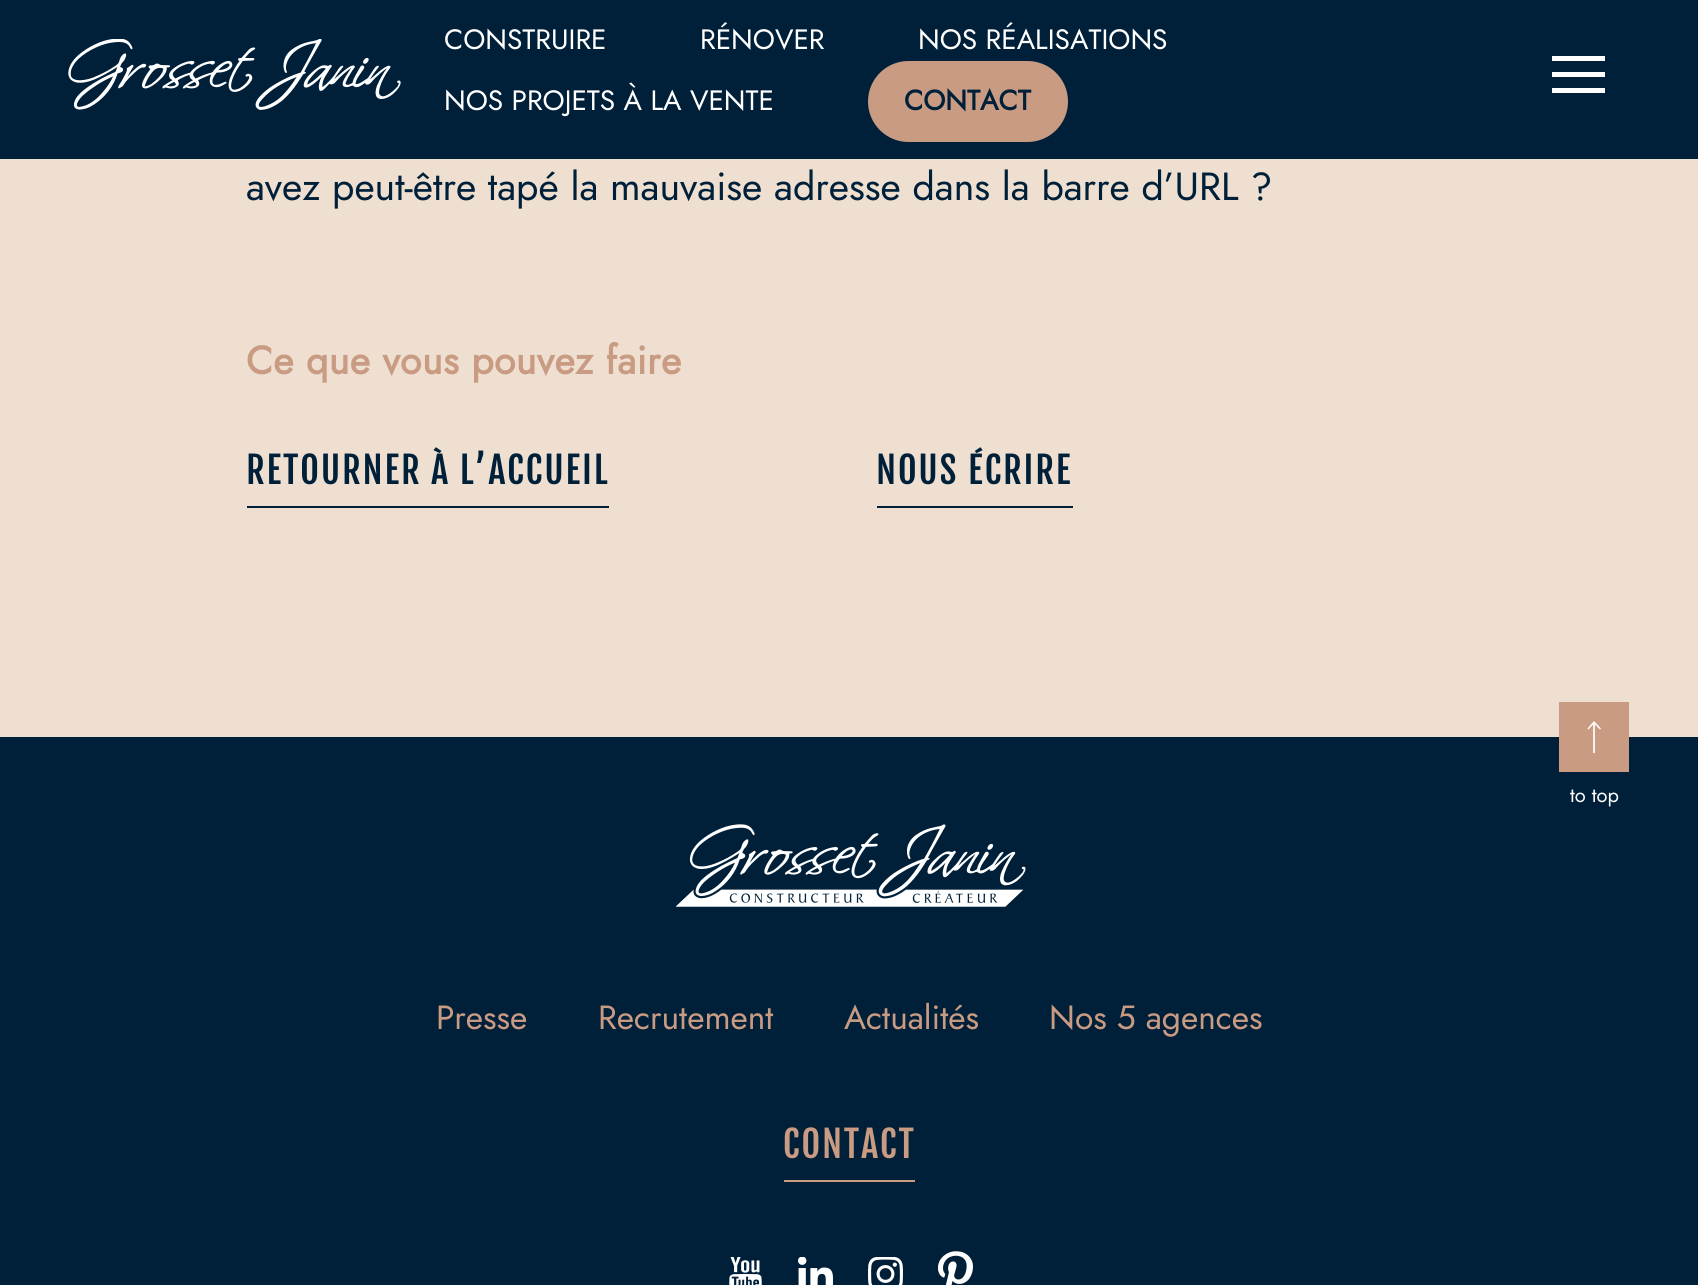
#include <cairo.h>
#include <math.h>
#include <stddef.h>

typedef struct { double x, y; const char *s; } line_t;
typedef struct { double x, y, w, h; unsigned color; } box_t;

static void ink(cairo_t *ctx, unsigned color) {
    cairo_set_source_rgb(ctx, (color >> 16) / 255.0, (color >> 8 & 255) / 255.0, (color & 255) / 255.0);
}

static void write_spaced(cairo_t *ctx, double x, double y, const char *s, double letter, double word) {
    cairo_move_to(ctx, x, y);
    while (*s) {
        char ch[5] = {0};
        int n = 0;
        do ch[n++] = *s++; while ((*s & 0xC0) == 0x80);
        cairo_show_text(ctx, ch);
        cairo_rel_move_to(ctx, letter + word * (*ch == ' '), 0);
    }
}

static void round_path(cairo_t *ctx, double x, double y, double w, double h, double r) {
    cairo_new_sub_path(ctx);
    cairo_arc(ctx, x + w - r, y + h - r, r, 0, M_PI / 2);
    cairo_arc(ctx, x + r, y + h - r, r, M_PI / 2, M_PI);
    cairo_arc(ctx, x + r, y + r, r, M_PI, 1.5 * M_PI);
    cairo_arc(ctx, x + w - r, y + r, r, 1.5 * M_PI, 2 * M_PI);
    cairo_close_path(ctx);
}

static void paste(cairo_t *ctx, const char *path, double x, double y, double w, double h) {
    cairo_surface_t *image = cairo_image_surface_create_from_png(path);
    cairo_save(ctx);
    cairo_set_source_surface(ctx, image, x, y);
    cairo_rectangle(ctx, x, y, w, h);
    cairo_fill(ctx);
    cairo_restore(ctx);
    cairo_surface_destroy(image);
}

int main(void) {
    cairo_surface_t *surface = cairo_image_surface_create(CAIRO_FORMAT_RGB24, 1698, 1285);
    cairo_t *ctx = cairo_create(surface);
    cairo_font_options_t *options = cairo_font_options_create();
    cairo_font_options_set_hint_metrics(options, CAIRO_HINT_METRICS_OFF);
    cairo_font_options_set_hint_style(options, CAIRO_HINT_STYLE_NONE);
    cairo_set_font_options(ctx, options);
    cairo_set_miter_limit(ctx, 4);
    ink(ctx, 0x002039);
    cairo_paint(ctx);
    paste(ctx, "media/1.png", 68, 39, 333, 71);
    cairo_select_font_face(ctx, "Jost", CAIRO_FONT_SLANT_NORMAL, CAIRO_FONT_WEIGHT_NORMAL);
    cairo_set_font_size(ctx, 28);
    ink(ctx, 0xFFFFFF);
    {
        static const line_t items[] = {
            {444, 49, "CONSTRUIRE"},
            {700, 49, "RÉNOVER"},
            {918, 49, "NOS RÉALISATIONS"},
            {444, 110, "NOS PROJETS À LA VENTE"},
        };
        for (size_t i = 0; i < sizeof items / sizeof *items; i++) {
            cairo_move_to(ctx, items[i].x, items[i].y);
            cairo_show_text(ctx, items[i].s);
        }
    }
    ink(ctx, 0xC99B83);
    round_path(ctx, 869, 62, 198, 79, 39.5);
    cairo_fill_preserve(ctx);
    cairo_stroke(ctx);
    cairo_select_font_face(ctx, "Jost", CAIRO_FONT_SLANT_NORMAL, CAIRO_FONT_WEIGHT_BOLD);
    ink(ctx, 0x002039);
    cairo_move_to(ctx, 904, 110);
    cairo_show_text(ctx, "CONTACT");
    {
        static const box_t items[] = {
            {1552, 72, 53, 5, 0xFFFFFF},
            {1552, 56, 53, 5, 0xFFFFFF},
            {1552, 88, 53, 5, 0xFFFFFF},
            {0, 159, 1698, 578, 0xEEDFD0},
        };
        for (size_t i = 0; i < sizeof items / sizeof *items; i++) {
            ink(ctx, items[i].color);
            cairo_rectangle(ctx, items[i].x, items[i].y, items[i].w, items[i].h);
            cairo_fill(ctx);
        }
    }
    cairo_select_font_face(ctx, "Jost", CAIRO_FONT_SLANT_NORMAL, CAIRO_FONT_WEIGHT_NORMAL);
    cairo_set_font_size(ctx, 39.2);
    ink(ctx, 0x002039);
    cairo_move_to(ctx, 246, 200);
    cairo_show_text(ctx, "avez peut-être tapé la mauvaise adresse dans la barre d’URL ?");
    cairo_select_font_face(ctx, "Jost", CAIRO_FONT_SLANT_NORMAL, CAIRO_FONT_WEIGHT_BOLD);
    ink(ctx, 0xC99B83);
    write_spaced(ctx, 246, 374, "Ce que vous pouvez faire", 0.4, 0);
    cairo_select_font_face(ctx, "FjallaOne", CAIRO_FONT_SLANT_NORMAL, CAIRO_FONT_WEIGHT_NORMAL);
    cairo_set_font_size(ctx, 36.5);
    ink(ctx, 0x002039);
    write_spaced(ctx, 246, 484, "RETOURNER À L’ACCUEIL", 1.8, 0);
    cairo_rectangle(ctx, 247, 506, 362, 2);
    cairo_fill(ctx);
    write_spaced(ctx, 876, 484, "NOUS ÉCRIRE", 1.8, 0);
    {
        static const box_t items[] = {
            {877, 506, 196, 2, 0x002039},
            {1559, 702, 70, 70, 0xC99B83},
            {1593, 723, 2, 30, 0xF7F0EC},
        };
        for (size_t i = 0; i < sizeof items / sizeof *items; i++) {
            ink(ctx, items[i].color);
            cairo_rectangle(ctx, items[i].x, items[i].y, items[i].w, items[i].h);
            cairo_fill(ctx);
        }
    }
    ink(ctx, 0xFFFFFF);
    cairo_new_path(ctx);
    cairo_move_to(ctx, 1601, 728.5);
    cairo_line_to(ctx, 1600, 729.5);
    cairo_line_to(ctx, 1594, 723.5);
    cairo_line_to(ctx, 1588.5, 729.5);
    cairo_line_to(ctx, 1587.5, 728.5);
    cairo_line_to(ctx, 1594, 721);
    cairo_close_path(ctx);
    cairo_fill(ctx);
    cairo_select_font_face(ctx, "Jost", CAIRO_FONT_SLANT_NORMAL, CAIRO_FONT_WEIGHT_NORMAL);
    cairo_set_font_size(ctx, 20);
    cairo_move_to(ctx, 1570, 802);
    cairo_show_text(ctx, "to top");
    paste(ctx, "media/2.png", 676, 824, 350, 83);
    cairo_set_font_size(ctx, 33.5);
    ink(ctx, 0xC99B83);
    {
        static const line_t items[] = {
            {436, 1029, "Presse"},
            {598, 1029, "Recrutement"},
            {844, 1029, "Actualités"},
            {1049, 1029, "Nos 5 agences"},
        };
        for (size_t i = 0; i < sizeof items / sizeof *items; i++) {
            cairo_move_to(ctx, items[i].x, items[i].y);
            cairo_show_text(ctx, items[i].s);
        }
    }
    cairo_select_font_face(ctx, "FjallaOne", CAIRO_FONT_SLANT_NORMAL, CAIRO_FONT_WEIGHT_NORMAL);
    cairo_set_font_size(ctx, 36.5);
    write_spaced(ctx, 783, 1158, "CONTACT", 1.8, 0);
    cairo_rectangle(ctx, 784, 1180, 131, 2);
    cairo_fill(ctx);
    paste(ctx, "media/3.png", 729, 1257, 33, 28);
    paste(ctx, "media/4.png", 798, 1257, 35, 28);
    paste(ctx, "media/5.png", 868, 1257, 35, 28);
    paste(ctx, "media/6.png", 938, 1251, 35, 34);
    cairo_surface_write_to_png(surface, "image.png");
    cairo_font_options_destroy(options);
    cairo_destroy(ctx);
    cairo_surface_destroy(surface);
    return 0;
}
